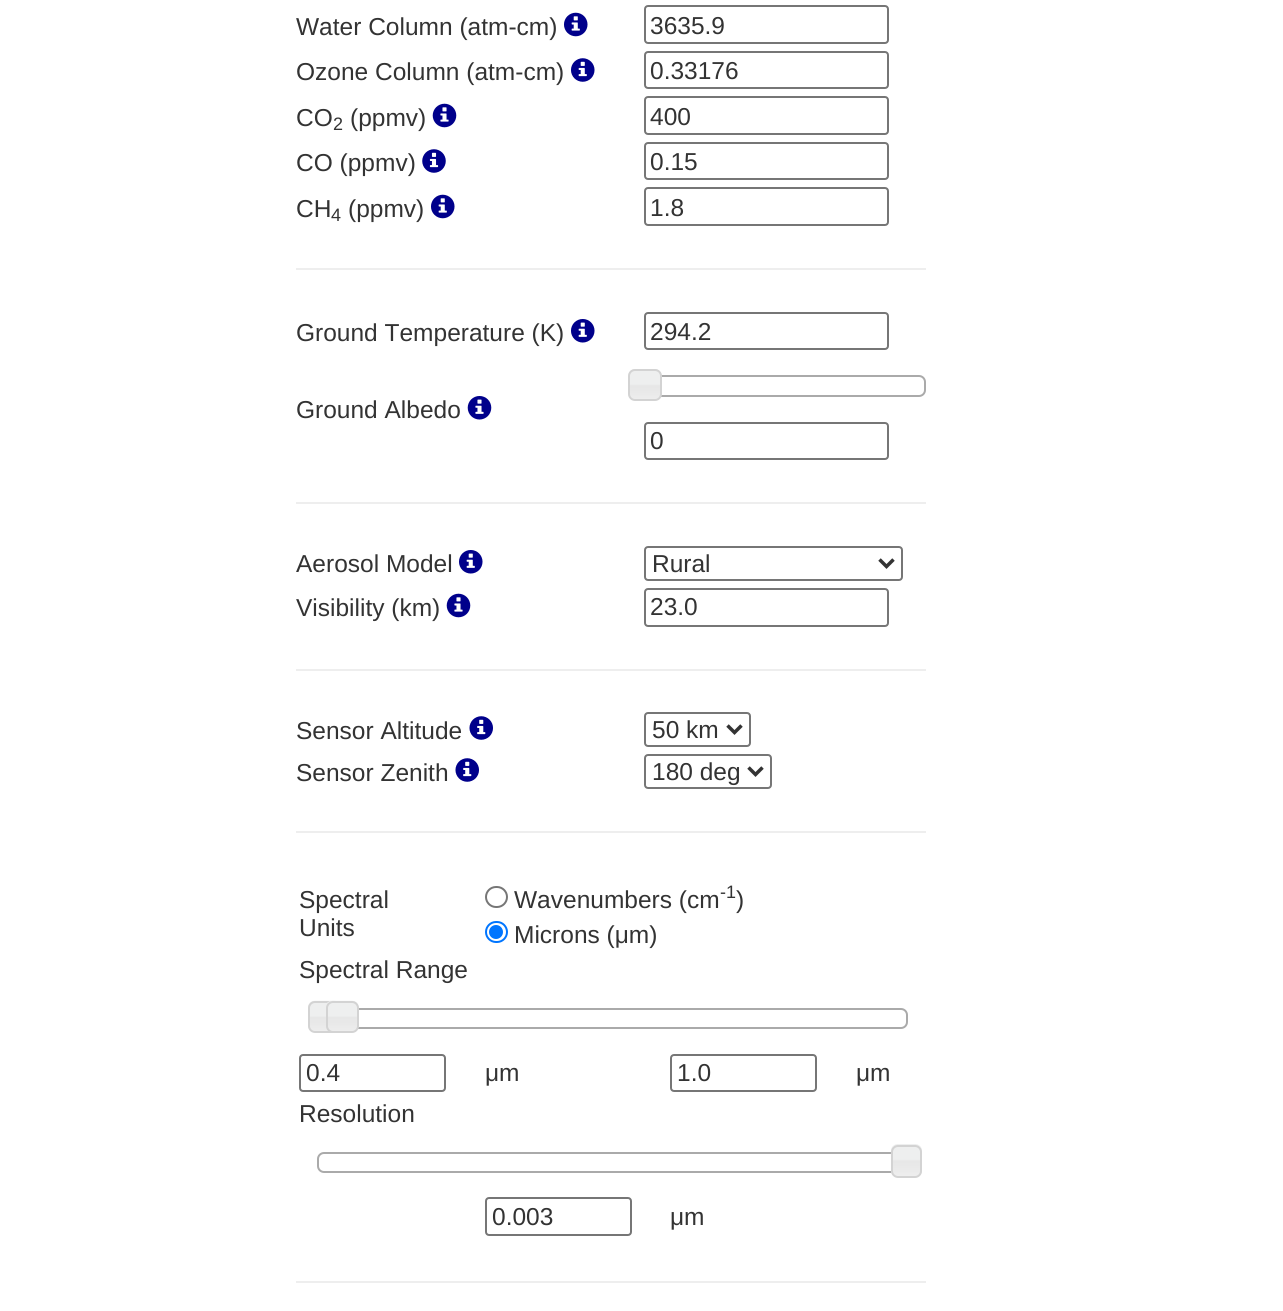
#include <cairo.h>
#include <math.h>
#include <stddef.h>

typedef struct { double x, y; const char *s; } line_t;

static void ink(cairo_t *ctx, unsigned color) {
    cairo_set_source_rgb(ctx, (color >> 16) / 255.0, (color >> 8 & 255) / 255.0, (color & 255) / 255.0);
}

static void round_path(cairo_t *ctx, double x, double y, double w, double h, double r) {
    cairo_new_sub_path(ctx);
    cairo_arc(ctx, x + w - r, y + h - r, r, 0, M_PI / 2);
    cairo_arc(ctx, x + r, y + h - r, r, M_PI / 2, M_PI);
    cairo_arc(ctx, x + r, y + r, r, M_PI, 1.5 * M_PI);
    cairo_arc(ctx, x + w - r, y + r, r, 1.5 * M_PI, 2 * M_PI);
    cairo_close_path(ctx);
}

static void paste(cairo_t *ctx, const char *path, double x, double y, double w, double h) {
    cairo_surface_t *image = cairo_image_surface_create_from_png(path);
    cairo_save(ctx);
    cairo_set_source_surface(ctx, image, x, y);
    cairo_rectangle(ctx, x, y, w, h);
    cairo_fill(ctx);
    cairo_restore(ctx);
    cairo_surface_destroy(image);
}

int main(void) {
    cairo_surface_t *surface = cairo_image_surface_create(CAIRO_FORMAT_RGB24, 1283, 1311);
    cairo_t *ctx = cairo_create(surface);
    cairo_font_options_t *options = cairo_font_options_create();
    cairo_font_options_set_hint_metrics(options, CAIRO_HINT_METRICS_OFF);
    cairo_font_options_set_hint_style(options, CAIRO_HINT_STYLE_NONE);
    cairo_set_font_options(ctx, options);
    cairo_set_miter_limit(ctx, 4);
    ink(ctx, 0xFFFFFF);
    cairo_paint(ctx);
    cairo_select_font_face(ctx, "Liberation Sans", CAIRO_FONT_SLANT_NORMAL, CAIRO_FONT_WEIGHT_NORMAL);
    cairo_set_font_size(ctx, 24.5);
    ink(ctx, 0x333333);
    cairo_move_to(ctx, 296, 35);
    cairo_show_text(ctx, "Water Column (atm-cm)");
    paste(ctx, "media/1.png", 564, 12, 24, 25);
    round_path(ctx, 645, 6, 243, 37, 3);
    ink(ctx, 0x767676);
    cairo_stroke(ctx);
    ink(ctx, 0x333333);
    cairo_move_to(ctx, 650, 34);
    cairo_show_text(ctx, "3635.9");
    cairo_move_to(ctx, 296, 80);
    cairo_show_text(ctx, "Ozone Column (atm-cm)");
    paste(ctx, "media/2.png", 571, 58, 24, 24);
    round_path(ctx, 645, 52, 243, 36, 3);
    ink(ctx, 0x767676);
    cairo_stroke(ctx);
    ink(ctx, 0x333333);
    cairo_move_to(ctx, 650, 79);
    cairo_show_text(ctx, "0.33176");
    cairo_move_to(ctx, 296, 126);
    cairo_show_text(ctx, "CO");
    cairo_set_font_size(ctx, 18);
    cairo_move_to(ctx, 333, 130);
    cairo_show_text(ctx, "2");
    cairo_set_font_size(ctx, 24.5);
    cairo_move_to(ctx, 350, 126);
    cairo_show_text(ctx, "(ppmv)");
    paste(ctx, "media/3.png", 432, 103, 25, 25);
    round_path(ctx, 645, 97, 243, 37, 3);
    ink(ctx, 0x767676);
    cairo_stroke(ctx);
    ink(ctx, 0x333333);
    cairo_move_to(ctx, 650, 125);
    cairo_show_text(ctx, "400");
    cairo_move_to(ctx, 296, 171);
    cairo_show_text(ctx, "CO (ppmv)");
    paste(ctx, "media/4.png", 422, 149, 24, 24);
    round_path(ctx, 645, 143, 243, 36, 3);
    ink(ctx, 0x767676);
    cairo_stroke(ctx);
    ink(ctx, 0x333333);
    cairo_move_to(ctx, 650, 170);
    cairo_show_text(ctx, "0.15");
    cairo_move_to(ctx, 296, 217);
    cairo_show_text(ctx, "CH");
    cairo_set_font_size(ctx, 18);
    cairo_move_to(ctx, 331, 221);
    cairo_show_text(ctx, "4");
    cairo_set_font_size(ctx, 24.5);
    cairo_move_to(ctx, 348, 217);
    cairo_show_text(ctx, "(ppmv)");
    paste(ctx, "media/1.png", 431, 194, 24, 25);
    round_path(ctx, 645, 188, 243, 37, 3);
    ink(ctx, 0x767676);
    cairo_stroke(ctx);
    ink(ctx, 0x333333);
    cairo_move_to(ctx, 650, 216);
    cairo_show_text(ctx, "1.8");
    ink(ctx, 0xEEEEEE);
    cairo_rectangle(ctx, 296, 268, 630, 2);
    cairo_fill(ctx);
    ink(ctx, 0x333333);
    cairo_move_to(ctx, 296, 341);
    cairo_show_text(ctx, "Ground Temperature (K)");
    paste(ctx, "media/5.png", 571, 319, 24, 24);
    round_path(ctx, 645, 313, 243, 36, 3);
    ink(ctx, 0x767676);
    cairo_stroke(ctx);
    ink(ctx, 0x333333);
    cairo_move_to(ctx, 650, 340);
    cairo_show_text(ctx, "294.2");
    round_path(ctx, 645, 376, 280, 20, 6);
    ink(ctx, 0xAAAAAA);
    cairo_stroke(ctx);
    paste(ctx, "media/6.png", 628, 369, 33, 31);
    round_path(ctx, 629, 370, 32, 30, 6);
    ink(ctx, 0xD3D3D3);
    cairo_stroke(ctx);
    ink(ctx, 0x333333);
    cairo_move_to(ctx, 296, 418);
    cairo_show_text(ctx, "Ground Albedo");
    paste(ctx, "media/7.png", 467, 396, 25, 24);
    round_path(ctx, 645, 423, 243, 36, 3);
    ink(ctx, 0x767676);
    cairo_stroke(ctx);
    ink(ctx, 0x333333);
    cairo_move_to(ctx, 650, 449);
    cairo_show_text(ctx, "0");
    ink(ctx, 0xEEEEEE);
    cairo_rectangle(ctx, 296, 502, 630, 2);
    cairo_fill(ctx);
    ink(ctx, 0x333333);
    cairo_move_to(ctx, 296, 572);
    cairo_show_text(ctx, "Aerosol Model");
    paste(ctx, "media/5.png", 459, 550, 24, 24);
    round_path(ctx, 645, 547, 257, 33, 3);
    ink(ctx, 0x767676);
    cairo_stroke(ctx);
    cairo_new_path(ctx);
    cairo_move_to(ctx, 879.5, 559.5);
    cairo_line_to(ctx, 886.5, 566.5);
    cairo_line_to(ctx, 893.5, 559.5);
    ink(ctx, 0x333333);
    cairo_set_line_width(ctx, 3.5);
    cairo_stroke(ctx);
    cairo_move_to(ctx, 652, 572);
    cairo_show_text(ctx, "Rural");
    cairo_move_to(ctx, 296, 616);
    cairo_show_text(ctx, "Visibility (km)");
    paste(ctx, "media/3.png", 446, 593, 25, 25);
    round_path(ctx, 645, 589, 243, 37, 3);
    ink(ctx, 0x767676);
    cairo_set_line_width(ctx, 2);
    cairo_stroke(ctx);
    ink(ctx, 0x333333);
    cairo_move_to(ctx, 650, 615);
    cairo_show_text(ctx, "23.0");
    ink(ctx, 0xEEEEEE);
    cairo_rectangle(ctx, 296, 669, 630, 2);
    cairo_fill(ctx);
    ink(ctx, 0x333333);
    cairo_move_to(ctx, 296, 739);
    cairo_show_text(ctx, "Sensor Altitude");
    paste(ctx, "media/8.png", 469, 716, 24, 24);
    round_path(ctx, 645, 713, 105, 33, 3);
    ink(ctx, 0x767676);
    cairo_stroke(ctx);
    cairo_new_path(ctx);
    cairo_move_to(ctx, 727.5, 725.5);
    cairo_line_to(ctx, 734.5, 732.5);
    cairo_line_to(ctx, 741.5, 725.5);
    ink(ctx, 0x333333);
    cairo_set_line_width(ctx, 3.5);
    cairo_stroke(ctx);
    cairo_move_to(ctx, 652, 738);
    cairo_show_text(ctx, "50 km");
    cairo_move_to(ctx, 296, 781);
    cairo_show_text(ctx, "Sensor Zenith");
    paste(ctx, "media/8.png", 455, 758, 24, 24);
    round_path(ctx, 645, 755, 126, 33, 3);
    ink(ctx, 0x767676);
    cairo_set_line_width(ctx, 2);
    cairo_stroke(ctx);
    cairo_new_path(ctx);
    cairo_move_to(ctx, 748.5, 767.5);
    cairo_line_to(ctx, 755.5, 774.5);
    cairo_line_to(ctx, 762.5, 767.5);
    ink(ctx, 0x333333);
    cairo_set_line_width(ctx, 3.5);
    cairo_stroke(ctx);
    cairo_move_to(ctx, 652, 780);
    cairo_show_text(ctx, "180 deg");
    ink(ctx, 0xEEEEEE);
    cairo_rectangle(ctx, 296, 831, 630, 2);
    cairo_fill(ctx);
    ink(ctx, 0x333333);
    cairo_move_to(ctx, 299, 908);
    cairo_show_text(ctx, "Spectral");
    cairo_move_to(ctx, 299, 936);
    cairo_show_text(ctx, "Units");
    round_path(ctx, 486, 887, 21, 20, 10);
    ink(ctx, 0x767676);
    cairo_set_line_width(ctx, 2);
    cairo_stroke(ctx);
    ink(ctx, 0x333333);
    cairo_move_to(ctx, 514, 908);
    cairo_show_text(ctx, "Wavenumbers (cm");
    cairo_set_font_size(ctx, 18);
    cairo_move_to(ctx, 720, 898);
    cairo_show_text(ctx, "-1");
    cairo_set_font_size(ctx, 24.5);
    cairo_move_to(ctx, 736, 908);
    cairo_show_text(ctx, ")");
    round_path(ctx, 486, 922, 21, 20, 10);
    ink(ctx, 0x0075FF);
    cairo_stroke(ctx);
    cairo_arc(ctx, 496, 932, 7, 0, 2 * M_PI);
    cairo_fill(ctx);
    ink(ctx, 0x333333);
    cairo_move_to(ctx, 514, 943);
    cairo_show_text(ctx, "Microns (μm)");
    cairo_move_to(ctx, 299, 978);
    cairo_show_text(ctx, "Spectral Range");
    round_path(ctx, 318, 1009, 589, 19, 6);
    ink(ctx, 0xAAAAAA);
    cairo_stroke(ctx);
    paste(ctx, "media/9.png", 308, 1000, 29, 32);
    round_path(ctx, 309, 1002, 31, 30, 6);
    ink(ctx, 0xD3D3D3);
    cairo_stroke(ctx);
    paste(ctx, "media/10.png", 326, 1000, 33, 32);
    round_path(ctx, 327, 1002, 31, 30, 6);
    cairo_stroke(ctx);
    round_path(ctx, 300, 1055, 145, 36, 3);
    ink(ctx, 0x767676);
    cairo_stroke(ctx);
    ink(ctx, 0x333333);
    cairo_move_to(ctx, 306, 1081);
    cairo_show_text(ctx, "0.4");
    cairo_move_to(ctx, 485, 1081);
    cairo_show_text(ctx, "μm");
    round_path(ctx, 671, 1055, 145, 36, 3);
    ink(ctx, 0x767676);
    cairo_stroke(ctx);
    ink(ctx, 0x333333);
    {
        static const line_t items[] = {
            {677, 1081, "1.0"},
            {856, 1081, "μm"},
            {299, 1122, "Resolution"},
        };
        for (size_t i = 0; i < sizeof items / sizeof *items; i++) {
            cairo_move_to(ctx, items[i].x, items[i].y);
            cairo_show_text(ctx, items[i].s);
        }
    }
    round_path(ctx, 318, 1153, 589, 19, 6);
    ink(ctx, 0xAAAAAA);
    cairo_stroke(ctx);
    paste(ctx, "media/11.png", 890, 1144, 32, 33);
    round_path(ctx, 892, 1146, 29, 31, 6);
    ink(ctx, 0xD3D3D3);
    cairo_stroke(ctx);
    round_path(ctx, 486, 1198, 145, 37, 3);
    ink(ctx, 0x767676);
    cairo_stroke(ctx);
    ink(ctx, 0x333333);
    cairo_move_to(ctx, 492, 1225);
    cairo_show_text(ctx, "0.003");
    cairo_move_to(ctx, 670, 1225);
    cairo_show_text(ctx, "μm");
    ink(ctx, 0xEEEEEE);
    cairo_rectangle(ctx, 296, 1281, 630, 2);
    cairo_fill(ctx);
    cairo_surface_write_to_png(surface, "image.png");
    cairo_font_options_destroy(options);
    cairo_destroy(ctx);
    cairo_surface_destroy(surface);
    return 0;
}
